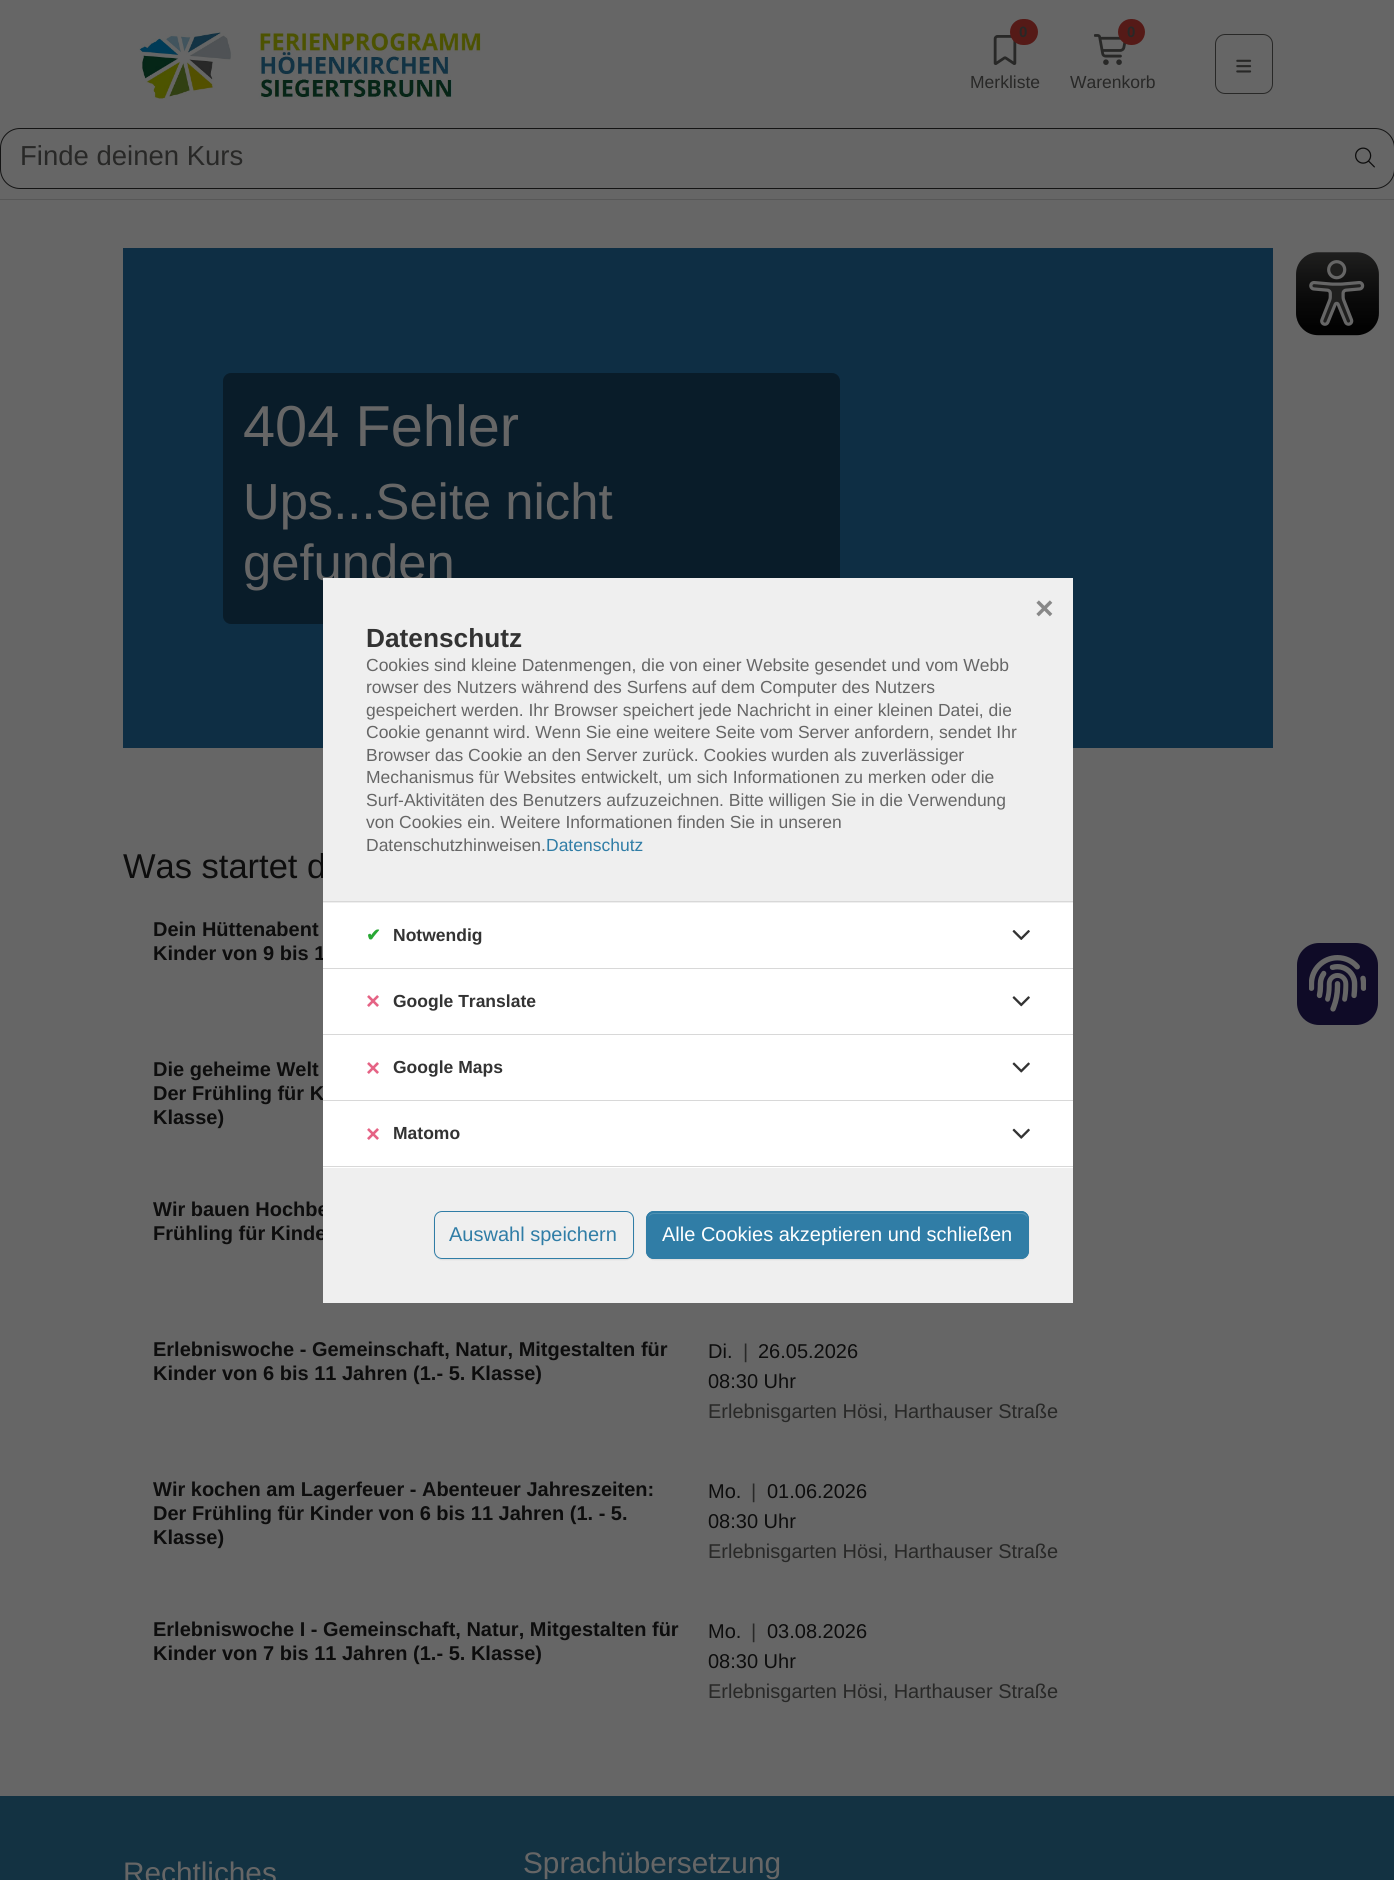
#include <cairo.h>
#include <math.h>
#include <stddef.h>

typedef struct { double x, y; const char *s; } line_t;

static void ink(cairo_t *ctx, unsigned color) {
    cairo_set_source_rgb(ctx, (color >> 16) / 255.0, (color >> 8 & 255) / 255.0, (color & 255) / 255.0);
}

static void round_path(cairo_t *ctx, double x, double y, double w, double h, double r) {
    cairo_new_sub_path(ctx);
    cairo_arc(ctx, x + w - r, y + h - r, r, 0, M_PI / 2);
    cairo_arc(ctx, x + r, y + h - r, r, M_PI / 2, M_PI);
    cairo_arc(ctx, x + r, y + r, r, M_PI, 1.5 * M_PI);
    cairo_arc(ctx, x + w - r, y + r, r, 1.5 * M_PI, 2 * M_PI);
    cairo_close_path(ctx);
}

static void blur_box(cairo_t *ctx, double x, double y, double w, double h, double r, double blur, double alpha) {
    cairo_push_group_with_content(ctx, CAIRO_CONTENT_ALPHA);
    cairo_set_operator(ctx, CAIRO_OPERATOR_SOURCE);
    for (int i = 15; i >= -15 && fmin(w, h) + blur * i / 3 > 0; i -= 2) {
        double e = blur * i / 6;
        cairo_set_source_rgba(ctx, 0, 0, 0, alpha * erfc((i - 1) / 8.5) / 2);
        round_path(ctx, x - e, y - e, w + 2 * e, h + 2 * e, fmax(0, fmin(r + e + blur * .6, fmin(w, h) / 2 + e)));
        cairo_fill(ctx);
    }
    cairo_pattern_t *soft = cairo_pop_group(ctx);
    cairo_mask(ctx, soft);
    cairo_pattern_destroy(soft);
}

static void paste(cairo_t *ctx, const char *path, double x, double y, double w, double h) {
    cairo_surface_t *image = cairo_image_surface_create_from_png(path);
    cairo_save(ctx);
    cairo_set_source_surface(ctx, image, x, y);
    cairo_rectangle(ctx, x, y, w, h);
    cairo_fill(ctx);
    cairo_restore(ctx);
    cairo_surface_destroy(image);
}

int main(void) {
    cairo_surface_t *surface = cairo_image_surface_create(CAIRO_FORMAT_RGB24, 1394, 1880);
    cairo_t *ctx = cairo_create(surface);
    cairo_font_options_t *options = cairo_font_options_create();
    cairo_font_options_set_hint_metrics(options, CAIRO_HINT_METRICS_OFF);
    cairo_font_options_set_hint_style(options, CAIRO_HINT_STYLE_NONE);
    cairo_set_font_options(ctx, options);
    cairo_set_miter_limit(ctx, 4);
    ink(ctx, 0x666666);
    cairo_paint(ctx);
    ink(ctx, 0x575757);
    cairo_rectangle(ctx, 0, 199, 1394, 1);
    cairo_fill(ctx);
    paste(ctx, "media/1.png", 139, 31, 342, 68);
    paste(ctx, "media/2.png", 993, 35, 24, 30);
    ink(ctx, 0x551A17);
    round_path(ctx, 1010, 19, 28, 26, 13);
    cairo_fill(ctx);
    cairo_select_font_face(ctx, "Liberation Sans", CAIRO_FONT_SLANT_NORMAL, CAIRO_FONT_WEIGHT_BOLD);
    cairo_set_font_size(ctx, 15);
    ink(ctx, 0x282827);
    cairo_move_to(ctx, 1019, 37);
    cairo_show_text(ctx, "0");
    cairo_select_font_face(ctx, "Liberation Sans", CAIRO_FONT_SLANT_NORMAL, CAIRO_FONT_WEIGHT_NORMAL);
    cairo_set_font_size(ctx, 17.5);
    cairo_move_to(ctx, 970, 88);
    cairo_show_text(ctx, "Merkliste");
    paste(ctx, "media/3.png", 1094, 34, 32, 31);
    ink(ctx, 0x551A17);
    round_path(ctx, 1118, 19, 27, 26, 13);
    cairo_fill(ctx);
    cairo_select_font_face(ctx, "Liberation Sans", CAIRO_FONT_SLANT_NORMAL, CAIRO_FONT_WEIGHT_BOLD);
    cairo_set_font_size(ctx, 15);
    ink(ctx, 0x282827);
    cairo_move_to(ctx, 1127, 37);
    cairo_show_text(ctx, "0");
    cairo_select_font_face(ctx, "Liberation Sans", CAIRO_FONT_SLANT_NORMAL, CAIRO_FONT_WEIGHT_NORMAL);
    cairo_set_font_size(ctx, 17.5);
    cairo_move_to(ctx, 1070, 88);
    cairo_show_text(ctx, "Warenkorb");
    round_path(ctx, 1215.5, 34.5, 57, 59, 9.5);
    cairo_set_line_width(ctx, 1);
    cairo_stroke(ctx);
    paste(ctx, "media/4.png", 1236, 59, 16, 14);
    round_path(ctx, 0.5, 128.5, 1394, 60, 19.5);
    ink(ctx, 0x141414);
    cairo_stroke(ctx);
    cairo_set_font_size(ctx, 27.5);
    ink(ctx, 0x282827);
    cairo_move_to(ctx, 20, 165);
    cairo_show_text(ctx, "Finde deinen Kurs");
    paste(ctx, "media/5.png", 1355, 147, 20, 21);
    paste(ctx, "media/6.png", 1296, 252, 83, 84);
    ink(ctx, 0x0E2E44);
    cairo_rectangle(ctx, 123, 248, 1150, 500);
    cairo_fill(ctx);
    ink(ctx, 0x091C29);
    round_path(ctx, 223, 373, 617, 251, 8);
    cairo_fill(ctx);
    cairo_set_font_size(ctx, 57.75);
    ink(ctx, 0x666666);
    cairo_move_to(ctx, 243, 446);
    cairo_show_text(ctx, "404 Fehler");
    cairo_set_font_size(ctx, 50.75);
    cairo_move_to(ctx, 243, 519);
    cairo_show_text(ctx, "Ups...Seite nicht");
    cairo_move_to(ctx, 243, 580);
    cairo_show_text(ctx, "gefunden");
    cairo_set_font_size(ctx, 34.5);
    ink(ctx, 0x0D0D0D);
    cairo_move_to(ctx, 123, 878);
    cairo_show_text(ctx, "Was startet d");
    cairo_select_font_face(ctx, "Liberation Sans", CAIRO_FONT_SLANT_NORMAL, CAIRO_FONT_WEIGHT_BOLD);
    cairo_set_font_size(ctx, 20);
    {
        static const line_t items[] = {
            {153, 936, "Dein Hüttenabent"},
            {153, 960, "Kinder von 9 bis 1"},
            {153, 1076, "Die geheime Welt"},
            {153, 1100, "Der Frühling für K"},
            {153, 1124, "Klasse)"},
            {153, 1216, "Wir bauen Hochbe"},
            {153, 1240, "Frühling für Kinde"},
            {153, 1356, "Erlebniswoche - Gemeinschaft, Natur, Mitgestalten für"},
            {153, 1380, "Kinder von 6 bis 11 Jahren (1.- 5. Klasse)"},
        };
        for (size_t i = 0; i < sizeof items / sizeof *items; i++) {
            cairo_move_to(ctx, items[i].x, items[i].y);
            cairo_show_text(ctx, items[i].s);
        }
    }
    cairo_select_font_face(ctx, "Liberation Sans", CAIRO_FONT_SLANT_NORMAL, CAIRO_FONT_WEIGHT_NORMAL);
    cairo_move_to(ctx, 708, 1358);
    cairo_show_text(ctx, "Di.");
    ink(ctx, 0x282827);
    cairo_move_to(ctx, 743, 1358);
    cairo_show_text(ctx, "|");
    ink(ctx, 0x0D0D0D);
    cairo_move_to(ctx, 758, 1358);
    cairo_show_text(ctx, "26.05.2026");
    cairo_move_to(ctx, 708, 1388);
    cairo_show_text(ctx, "08:30 Uhr");
    ink(ctx, 0x282827);
    cairo_move_to(ctx, 708, 1418);
    cairo_show_text(ctx, "Erlebnisgarten Hösi, Harthauser Straße");
    cairo_select_font_face(ctx, "Liberation Sans", CAIRO_FONT_SLANT_NORMAL, CAIRO_FONT_WEIGHT_BOLD);
    ink(ctx, 0x0D0D0D);
    {
        static const line_t items[] = {
            {153, 1496, "Wir kochen am Lagerfeuer - Abenteuer Jahreszeiten:"},
            {153, 1520, "Der Frühling für Kinder von 6 bis 11 Jahren (1. - 5."},
            {153, 1544, "Klasse)"},
        };
        for (size_t i = 0; i < sizeof items / sizeof *items; i++) {
            cairo_move_to(ctx, items[i].x, items[i].y);
            cairo_show_text(ctx, items[i].s);
        }
    }
    cairo_select_font_face(ctx, "Liberation Sans", CAIRO_FONT_SLANT_NORMAL, CAIRO_FONT_WEIGHT_NORMAL);
    cairo_move_to(ctx, 708, 1498);
    cairo_show_text(ctx, "Mo.");
    ink(ctx, 0x282827);
    cairo_move_to(ctx, 751, 1498);
    cairo_show_text(ctx, "|");
    ink(ctx, 0x0D0D0D);
    cairo_move_to(ctx, 767, 1498);
    cairo_show_text(ctx, "01.06.2026");
    cairo_move_to(ctx, 708, 1528);
    cairo_show_text(ctx, "08:30 Uhr");
    ink(ctx, 0x282827);
    cairo_move_to(ctx, 708, 1558);
    cairo_show_text(ctx, "Erlebnisgarten Hösi, Harthauser Straße");
    cairo_select_font_face(ctx, "Liberation Sans", CAIRO_FONT_SLANT_NORMAL, CAIRO_FONT_WEIGHT_BOLD);
    ink(ctx, 0x0D0D0D);
    cairo_move_to(ctx, 153, 1636);
    cairo_show_text(ctx, "Erlebniswoche I - Gemeinschaft, Natur, Mitgestalten für");
    cairo_move_to(ctx, 153, 1660);
    cairo_show_text(ctx, "Kinder von 7 bis 11 Jahren (1.- 5. Klasse)");
    cairo_select_font_face(ctx, "Liberation Sans", CAIRO_FONT_SLANT_NORMAL, CAIRO_FONT_WEIGHT_NORMAL);
    cairo_move_to(ctx, 708, 1638);
    cairo_show_text(ctx, "Mo.");
    ink(ctx, 0x282827);
    cairo_move_to(ctx, 751, 1638);
    cairo_show_text(ctx, "|");
    ink(ctx, 0x0D0D0D);
    cairo_move_to(ctx, 767, 1638);
    cairo_show_text(ctx, "03.08.2026");
    cairo_move_to(ctx, 708, 1668);
    cairo_show_text(ctx, "08:30 Uhr");
    ink(ctx, 0x282827);
    cairo_move_to(ctx, 708, 1698);
    cairo_show_text(ctx, "Erlebnisgarten Hösi, Harthauser Straße");
    ink(ctx, 0x0F0B27);
    round_path(ctx, 1295.5, 941.5, 84, 85, 23.5);
    cairo_fill_preserve(ctx);
    ink(ctx, 0x666666);
    cairo_set_line_width(ctx, 3);
    cairo_stroke(ctx);
    paste(ctx, "media/7.png", 1309, 955, 57, 57);
    ink(ctx, 0x133242);
    cairo_rectangle(ctx, 0, 1796, 1394, 84);
    cairo_fill(ctx);
    cairo_set_font_size(ctx, 29.75);
    ink(ctx, 0x666666);
    cairo_move_to(ctx, 123, 1883);
    cairo_show_text(ctx, "Rechtliches");
    cairo_move_to(ctx, 523, 1873);
    cairo_show_text(ctx, "Sprachübersetzung");
    ink(ctx, 0xEFEFEF);
    cairo_rectangle(ctx, 323, 578, 750, 725);
    cairo_fill(ctx);
    ink(ctx, 0xD8D8D8);
    cairo_rectangle(ctx, 323, 901, 750, 1);
    cairo_fill(ctx);
    cairo_select_font_face(ctx, "Liberation Sans", CAIRO_FONT_SLANT_NORMAL, CAIRO_FONT_WEIGHT_BOLD);
    cairo_set_font_size(ctx, 32);
    ink(ctx, 0x888888);
    cairo_move_to(ctx, 1035, 619);
    cairo_show_text(ctx, "×");
    cairo_set_font_size(ctx, 26.25);
    ink(ctx, 0x333333);
    cairo_move_to(ctx, 366, 647);
    cairo_show_text(ctx, "Datenschutz");
    cairo_select_font_face(ctx, "Liberation Sans", CAIRO_FONT_SLANT_NORMAL, CAIRO_FONT_WEIGHT_NORMAL);
    cairo_set_font_size(ctx, 17.5);
    ink(ctx, 0x666666);
    {
        static const line_t items[] = {
            {366, 671, "Cookies sind kleine Datenmengen, die von einer Website gesendet und vom Webb"},
            {366, 693, "rowser des Nutzers während des Surfens auf dem Computer des Nutzers"},
            {366, 716, "gespeichert werden. Ihr Browser speichert jede Nachricht in einer kleinen Datei, die"},
            {366, 738, "Cookie genannt wird. Wenn Sie eine weitere Seite vom Server anfordern, sendet Ihr"},
            {366, 761, "Browser das Cookie an den Server zurück. Cookies wurden als zuverlässiger"},
            {366, 783, "Mechanismus für Websites entwickelt, um sich Informationen zu merken oder die"},
            {366, 806, "Surf-Aktivitäten des Benutzers aufzuzeichnen. Bitte willigen Sie in die Verwendung"},
            {366, 828, "von Cookies ein. Weitere Informationen finden Sie in unseren"},
            {366, 851, "Datenschutzhinweisen."},
        };
        for (size_t i = 0; i < sizeof items / sizeof *items; i++) {
            cairo_move_to(ctx, items[i].x, items[i].y);
            cairo_show_text(ctx, items[i].s);
        }
    }
    ink(ctx, 0x307DA6);
    cairo_move_to(ctx, 546, 851);
    cairo_show_text(ctx, "Datenschutz");
    ink(ctx, 0xFFFFFF);
    cairo_rectangle(ctx, 323, 903, 750, 265);
    cairo_fill(ctx);
    ink(ctx, 0xD8D8D8);
    cairo_rectangle(ctx, 323, 968, 750, 1);
    cairo_fill(ctx);
    cairo_select_font_face(ctx, "DejaVu Sans", CAIRO_FONT_SLANT_NORMAL, CAIRO_FONT_WEIGHT_BOLD);
    ink(ctx, 0x28A834);
    cairo_move_to(ctx, 366, 941);
    cairo_show_text(ctx, "✔");
    cairo_select_font_face(ctx, "Liberation Sans", CAIRO_FONT_SLANT_NORMAL, CAIRO_FONT_WEIGHT_BOLD);
    ink(ctx, 0x333333);
    cairo_move_to(ctx, 393, 941);
    cairo_show_text(ctx, "Notwendig");
    paste(ctx, "media/8.png", 1012, 930, 18, 10);
    ink(ctx, 0xD8D8D8);
    cairo_rectangle(ctx, 323, 1034, 750, 1);
    cairo_fill(ctx);
    cairo_set_font_size(ctx, 24);
    ink(ctx, 0xE56385);
    cairo_move_to(ctx, 366, 1009);
    cairo_show_text(ctx, "×");
    cairo_set_font_size(ctx, 17.5);
    ink(ctx, 0x333333);
    cairo_move_to(ctx, 393, 1007);
    cairo_show_text(ctx, "Google Translate");
    paste(ctx, "media/9.png", 1012, 996, 18, 11);
    ink(ctx, 0xD8D8D8);
    cairo_rectangle(ctx, 323, 1100, 750, 1);
    cairo_fill(ctx);
    cairo_set_font_size(ctx, 24);
    ink(ctx, 0xE56385);
    cairo_move_to(ctx, 366, 1076);
    cairo_show_text(ctx, "×");
    cairo_set_font_size(ctx, 17.5);
    ink(ctx, 0x333333);
    cairo_move_to(ctx, 393, 1073);
    cairo_show_text(ctx, "Google Maps");
    paste(ctx, "media/10.png", 1012, 1062, 18, 11);
    ink(ctx, 0xD8D8D8);
    cairo_rectangle(ctx, 323, 1166, 750, 1);
    cairo_fill(ctx);
    cairo_set_font_size(ctx, 24);
    ink(ctx, 0xE56385);
    cairo_move_to(ctx, 366, 1142);
    cairo_show_text(ctx, "×");
    cairo_set_font_size(ctx, 17.5);
    ink(ctx, 0x333333);
    cairo_move_to(ctx, 393, 1139);
    cairo_show_text(ctx, "Matomo");
    paste(ctx, "media/11.png", 1012, 1128, 18, 11);
    cairo_save(ctx);
    cairo_set_fill_rule(ctx, CAIRO_FILL_RULE_EVEN_ODD);
    cairo_new_path(ctx);
    cairo_move_to(ctx, 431, 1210);
    cairo_line_to(ctx, 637, 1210);
    cairo_line_to(ctx, 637, 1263);
    cairo_line_to(ctx, 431, 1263);
    cairo_close_path(ctx);
    cairo_move_to(ctx, 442, 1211);
    cairo_line_to(ctx, 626, 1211);
    cairo_curve_to(ctx, 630.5, 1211, 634, 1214.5, 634, 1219);
    cairo_line_to(ctx, 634, 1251);
    cairo_curve_to(ctx, 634, 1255.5, 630.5, 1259, 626, 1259);
    cairo_line_to(ctx, 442, 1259);
    cairo_curve_to(ctx, 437.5, 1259, 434, 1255.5, 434, 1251);
    cairo_line_to(ctx, 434, 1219);
    cairo_curve_to(ctx, 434, 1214.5, 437.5, 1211, 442, 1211);
    cairo_close_path(ctx);
    cairo_clip(ctx);
    ink(ctx, 0x000000);
    blur_box(ctx, 434, 1213, 200, 47, 8, 0.5, 0.07);
    cairo_restore(ctx);
    round_path(ctx, 434.5, 1211.5, 199, 47, 7.5);
    ink(ctx, 0x307DA6);
    cairo_set_line_width(ctx, 1);
    cairo_stroke(ctx);
    cairo_select_font_face(ctx, "Liberation Sans", CAIRO_FONT_SLANT_NORMAL, CAIRO_FONT_WEIGHT_NORMAL);
    cairo_set_font_size(ctx, 20);
    cairo_move_to(ctx, 449, 1241);
    cairo_show_text(ctx, "Auswahl speichern");
    ink(ctx, 0x000000);
    blur_box(ctx, 646, 1213, 383, 47, 8, 0.5, 0.07);
    ink(ctx, 0x307DA6);
    round_path(ctx, 646, 1211, 383, 48, 8);
    cairo_fill(ctx);
    ink(ctx, 0x4F91B3);
    cairo_new_path(ctx);
    cairo_move_to(ctx, 654, 1214);
    cairo_line_to(ctx, 1021, 1214);
    cairo_curve_to(ctx, 1025, 1214, 1028, 1217, 1028, 1220);
    cairo_curve_to(ctx, 1028, 1216, 1026, 1213, 1022, 1213);
    cairo_line_to(ctx, 654, 1213);
    cairo_curve_to(ctx, 650, 1213, 648, 1216, 648, 1220);
    cairo_curve_to(ctx, 648, 1217, 650, 1214, 654, 1214);
    cairo_close_path(ctx);
    cairo_fill(ctx);
    round_path(ctx, 646.5, 1211.5, 382, 47, 7.5);
    ink(ctx, 0x307DA6);
    cairo_stroke(ctx);
    ink(ctx, 0xFFFFFF);
    cairo_move_to(ctx, 662, 1241);
    cairo_show_text(ctx, "Alle Cookies akzeptieren und schließen");
    cairo_surface_write_to_png(surface, "image.png");
    cairo_font_options_destroy(options);
    cairo_destroy(ctx);
    cairo_surface_destroy(surface);
    return 0;
}
